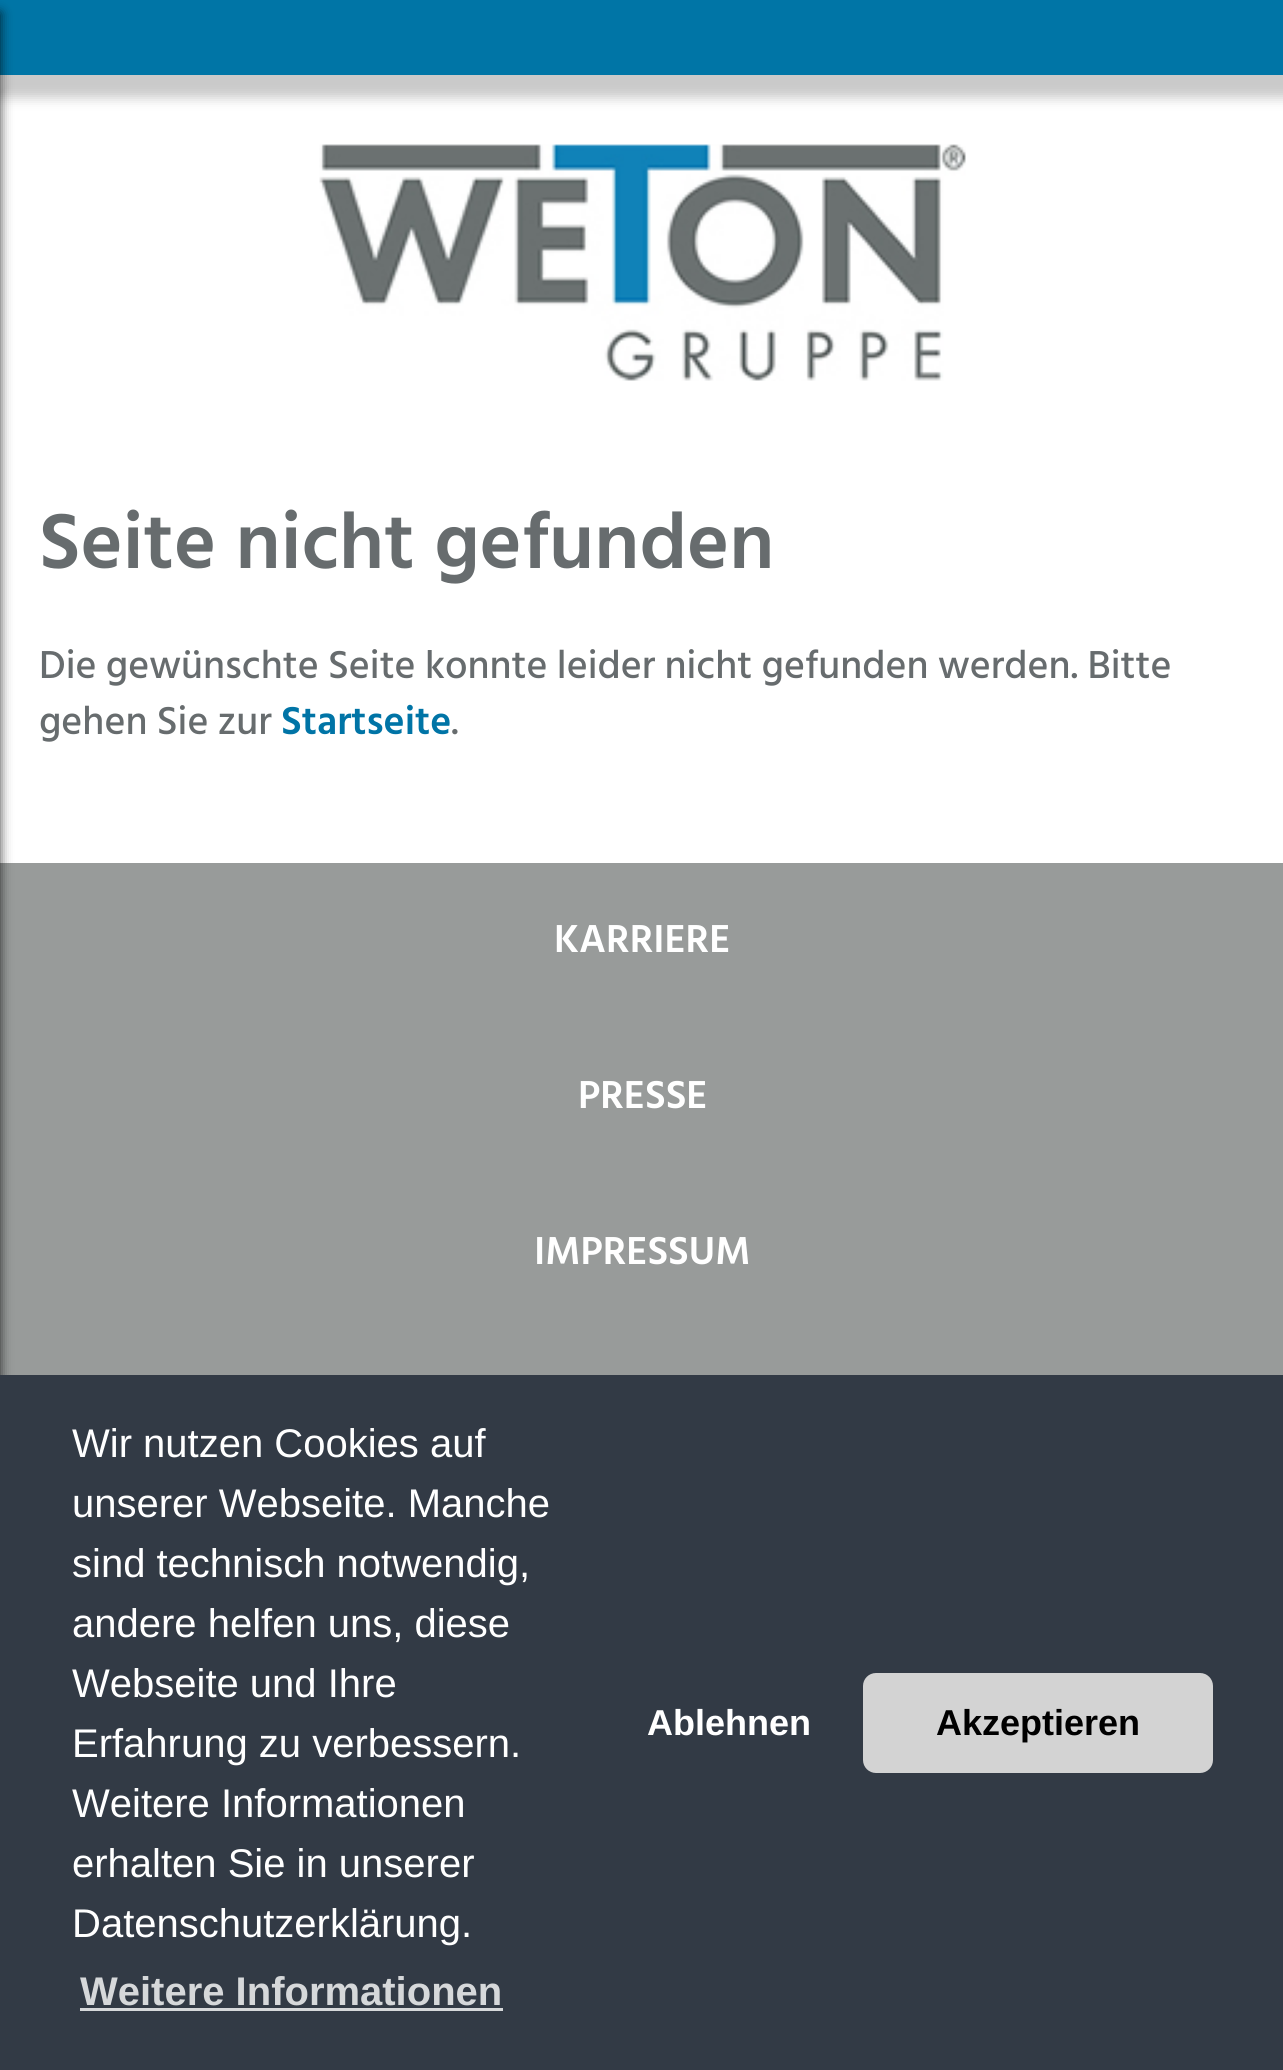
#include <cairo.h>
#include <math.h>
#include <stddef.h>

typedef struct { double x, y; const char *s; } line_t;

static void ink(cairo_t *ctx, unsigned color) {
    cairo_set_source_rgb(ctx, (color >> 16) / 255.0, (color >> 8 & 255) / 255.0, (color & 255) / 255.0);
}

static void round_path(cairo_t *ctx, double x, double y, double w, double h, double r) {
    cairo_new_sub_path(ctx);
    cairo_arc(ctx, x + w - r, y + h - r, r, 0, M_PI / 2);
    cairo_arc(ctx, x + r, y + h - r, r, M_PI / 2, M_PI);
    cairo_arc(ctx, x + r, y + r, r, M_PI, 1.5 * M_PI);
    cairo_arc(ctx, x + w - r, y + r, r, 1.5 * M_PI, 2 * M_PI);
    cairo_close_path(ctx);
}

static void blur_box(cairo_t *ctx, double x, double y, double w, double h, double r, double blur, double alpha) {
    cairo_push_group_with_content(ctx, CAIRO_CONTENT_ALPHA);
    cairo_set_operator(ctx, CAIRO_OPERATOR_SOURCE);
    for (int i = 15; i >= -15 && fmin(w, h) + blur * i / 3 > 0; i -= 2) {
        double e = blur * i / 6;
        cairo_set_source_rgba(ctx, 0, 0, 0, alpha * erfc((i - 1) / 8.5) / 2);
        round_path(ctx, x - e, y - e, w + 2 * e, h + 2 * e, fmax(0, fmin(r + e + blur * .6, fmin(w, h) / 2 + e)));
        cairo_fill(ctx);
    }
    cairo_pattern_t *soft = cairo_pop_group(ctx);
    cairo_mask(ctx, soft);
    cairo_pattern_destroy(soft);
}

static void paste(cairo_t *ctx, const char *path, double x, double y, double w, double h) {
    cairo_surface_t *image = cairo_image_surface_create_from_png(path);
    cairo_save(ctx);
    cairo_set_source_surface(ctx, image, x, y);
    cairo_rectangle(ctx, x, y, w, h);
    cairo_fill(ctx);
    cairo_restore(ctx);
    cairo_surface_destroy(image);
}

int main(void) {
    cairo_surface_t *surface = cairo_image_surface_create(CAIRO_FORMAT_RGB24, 1283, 2070);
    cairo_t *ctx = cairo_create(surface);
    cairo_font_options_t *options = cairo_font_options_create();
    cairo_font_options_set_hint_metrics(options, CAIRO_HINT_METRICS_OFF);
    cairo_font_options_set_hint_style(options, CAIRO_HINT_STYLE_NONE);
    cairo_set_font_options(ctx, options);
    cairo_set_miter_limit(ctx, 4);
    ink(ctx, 0xFFFFFF);
    cairo_paint(ctx);
    ink(ctx, 0x000000);
    blur_box(ctx, -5, -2, 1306, 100, 0, 6, 0.21);
    ink(ctx, 0x0075A6);
    cairo_rectangle(ctx, 0, 0, 1283, 75);
    cairo_fill(ctx);
    ink(ctx, 0x989B9A);
    cairo_rectangle(ctx, 0, 863, 1283, 512);
    cairo_fill(ctx);
    ink(ctx, 0x000000);
    blur_box(ctx, -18, 13, 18, 2055, 0, 6, 0.75);
    paste(ctx, "media/1.png", 319, 144, 647, 237);
    cairo_select_font_face(ctx, "Hind Siliguri SemiBold", CAIRO_FONT_SLANT_NORMAL, CAIRO_FONT_WEIGHT_NORMAL);
    cairo_set_font_size(ctx, 80);
    ink(ctx, 0x676C6E);
    cairo_move_to(ctx, 39, 568);
    cairo_show_text(ctx, "Seite nicht gefunden");
    cairo_select_font_face(ctx, "Hind Siliguri Medium", CAIRO_FONT_SLANT_NORMAL, CAIRO_FONT_WEIGHT_NORMAL);
    cairo_set_font_size(ctx, 40);
    cairo_move_to(ctx, 39, 678);
    cairo_show_text(ctx, "Die gewünschte Seite konnte leider nicht gefunden werden. Bitte");
    cairo_move_to(ctx, 39, 734);
    cairo_show_text(ctx, "gehen Sie zur");
    cairo_select_font_face(ctx, "Hind Siliguri SemiBold", CAIRO_FONT_SLANT_NORMAL, CAIRO_FONT_WEIGHT_NORMAL);
    ink(ctx, 0x0074A6);
    cairo_move_to(ctx, 281, 734);
    cairo_show_text(ctx, "Startseite");
    cairo_select_font_face(ctx, "Hind Siliguri Medium", CAIRO_FONT_SLANT_NORMAL, CAIRO_FONT_WEIGHT_NORMAL);
    ink(ctx, 0x676C6E);
    cairo_move_to(ctx, 451, 734);
    cairo_show_text(ctx, ".");
    cairo_select_font_face(ctx, "Hind Siliguri SemiBold", CAIRO_FONT_SLANT_NORMAL, CAIRO_FONT_WEIGHT_NORMAL);
    ink(ctx, 0xFFFFFF);
    {
        static const line_t items[] = {
            {554, 952, "KARRIERE"},
            {578, 1108, "PRESSE"},
            {534, 1264, "IMPRESSUM"},
        };
        for (size_t i = 0; i < sizeof items / sizeof *items; i++) {
            cairo_move_to(ctx, items[i].x, items[i].y);
            cairo_show_text(ctx, items[i].s);
        }
    }
    ink(ctx, 0x323A45);
    cairo_rectangle(ctx, 0, 1375, 1283, 695);
    cairo_fill(ctx);
    cairo_select_font_face(ctx, "Liberation Sans", CAIRO_FONT_SLANT_NORMAL, CAIRO_FONT_WEIGHT_NORMAL);
    ink(ctx, 0xFFFFFF);
    {
        static const line_t items[] = {
            {72, 1457, "Wir nutzen Cookies auf"},
            {72, 1517, "unserer Webseite. Manche"},
            {72, 1577, "sind technisch notwendig,"},
            {72, 1637, "andere helfen uns, diese"},
            {72, 1697, "Webseite und Ihre"},
            {72, 1757, "Erfahrung zu verbessern."},
            {72, 1817, "Weitere Informationen"},
            {72, 1877, "erhalten Sie in unserer"},
            {72, 1937, "Datenschutzerklärung."},
        };
        for (size_t i = 0; i < sizeof items / sizeof *items; i++) {
            cairo_move_to(ctx, items[i].x, items[i].y);
            cairo_show_text(ctx, items[i].s);
        }
    }
    cairo_select_font_face(ctx, "Liberation Sans", CAIRO_FONT_SLANT_NORMAL, CAIRO_FONT_WEIGHT_BOLD);
    ink(ctx, 0xD6D8DA);
    cairo_move_to(ctx, 80, 2005);
    cairo_show_text(ctx, "Weitere Informationen");
    cairo_rectangle(ctx, 80, 2008, 423, 3);
    cairo_fill(ctx);
    cairo_set_font_size(ctx, 36);
    ink(ctx, 0xFFFFFF);
    cairo_move_to(ctx, 647, 1735);
    cairo_show_text(ctx, "Ablehnen");
    ink(ctx, 0xD3D3D3);
    round_path(ctx, 863, 1673, 350, 100, 13);
    cairo_fill(ctx);
    ink(ctx, 0x000000);
    cairo_move_to(ctx, 936, 1735);
    cairo_show_text(ctx, "Akzeptieren");
    cairo_surface_write_to_png(surface, "image.png");
    cairo_font_options_destroy(options);
    cairo_destroy(ctx);
    cairo_surface_destroy(surface);
    return 0;
}
